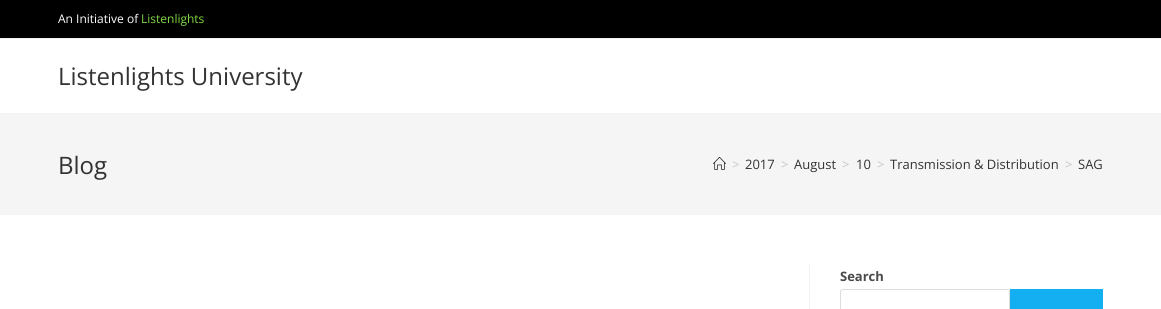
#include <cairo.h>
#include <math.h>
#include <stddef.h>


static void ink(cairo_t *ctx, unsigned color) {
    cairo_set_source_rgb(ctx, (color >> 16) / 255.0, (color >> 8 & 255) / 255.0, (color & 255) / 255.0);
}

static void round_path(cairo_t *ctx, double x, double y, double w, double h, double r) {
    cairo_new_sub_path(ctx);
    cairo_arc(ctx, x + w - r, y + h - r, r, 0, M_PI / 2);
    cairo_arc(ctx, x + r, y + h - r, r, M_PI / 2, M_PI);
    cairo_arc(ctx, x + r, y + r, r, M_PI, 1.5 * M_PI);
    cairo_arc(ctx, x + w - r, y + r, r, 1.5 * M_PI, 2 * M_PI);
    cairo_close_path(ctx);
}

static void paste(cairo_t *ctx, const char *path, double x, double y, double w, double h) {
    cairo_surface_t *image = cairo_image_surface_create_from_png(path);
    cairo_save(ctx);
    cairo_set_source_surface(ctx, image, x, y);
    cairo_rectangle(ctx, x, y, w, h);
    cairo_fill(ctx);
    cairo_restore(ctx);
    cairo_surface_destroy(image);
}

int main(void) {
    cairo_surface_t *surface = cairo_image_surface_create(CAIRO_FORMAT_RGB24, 1161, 309);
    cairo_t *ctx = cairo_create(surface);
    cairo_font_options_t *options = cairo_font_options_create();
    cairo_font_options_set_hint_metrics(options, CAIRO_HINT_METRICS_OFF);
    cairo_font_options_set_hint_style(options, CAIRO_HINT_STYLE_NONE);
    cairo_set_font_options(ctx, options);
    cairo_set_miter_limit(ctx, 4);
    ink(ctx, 0xFFFFFF);
    cairo_paint(ctx);
    ink(ctx, 0x000000);
    cairo_rectangle(ctx, 0, 0, 1161, 38);
    cairo_fill(ctx);
    ink(ctx, 0xF1F1F1);
    cairo_rectangle(ctx, 0, 38, 1161, 1);
    cairo_fill(ctx);
    cairo_select_font_face(ctx, "Open Sans", CAIRO_FONT_SLANT_NORMAL, CAIRO_FONT_WEIGHT_NORMAL);
    cairo_set_font_size(ctx, 12);
    ink(ctx, 0xFFFFFF);
    cairo_move_to(ctx, 58, 23);
    cairo_show_text(ctx, "An Initiative of");
    ink(ctx, 0x81D742);
    cairo_move_to(ctx, 141, 23);
    cairo_show_text(ctx, "Listenlights");
    ink(ctx, 0xF1F1F1);
    cairo_rectangle(ctx, 0, 113, 1161, 1);
    cairo_fill(ctx);
    cairo_set_font_size(ctx, 24);
    ink(ctx, 0x333333);
    cairo_move_to(ctx, 58, 85);
    cairo_show_text(ctx, "Listenlights University");
    ink(ctx, 0xF5F5F5);
    cairo_rectangle(ctx, 0, 114, 1161, 101);
    cairo_fill(ctx);
    ink(ctx, 0x333333);
    cairo_move_to(ctx, 58, 174);
    cairo_show_text(ctx, "Blog");
    paste(ctx, "media/1.png", 713, 156, 13, 14);
    cairo_set_font_size(ctx, 13);
    ink(ctx, 0xC6C6C6);
    cairo_move_to(ctx, 732, 169);
    cairo_show_text(ctx, ">");
    ink(ctx, 0x333333);
    cairo_move_to(ctx, 745, 169);
    cairo_show_text(ctx, "2017");
    ink(ctx, 0xC6C6C6);
    cairo_move_to(ctx, 781, 169);
    cairo_show_text(ctx, ">");
    ink(ctx, 0x333333);
    cairo_move_to(ctx, 794, 169);
    cairo_show_text(ctx, "August");
    ink(ctx, 0xC6C6C6);
    cairo_move_to(ctx, 842, 169);
    cairo_show_text(ctx, ">");
    ink(ctx, 0x333333);
    cairo_move_to(ctx, 856, 169);
    cairo_show_text(ctx, "10");
    ink(ctx, 0xC6C6C6);
    cairo_move_to(ctx, 877, 169);
    cairo_show_text(ctx, ">");
    ink(ctx, 0x333333);
    cairo_move_to(ctx, 890, 169);
    cairo_show_text(ctx, "Transmission & Distribution");
    ink(ctx, 0xC6C6C6);
    cairo_move_to(ctx, 1065, 169);
    cairo_show_text(ctx, ">");
    ink(ctx, 0x333333);
    cairo_move_to(ctx, 1078, 169);
    cairo_show_text(ctx, "SAG");
    ink(ctx, 0xF1F1F1);
    cairo_rectangle(ctx, 809, 265, 1, 44);
    cairo_fill(ctx);
    cairo_select_font_face(ctx, "Open Sans", CAIRO_FONT_SLANT_NORMAL, CAIRO_FONT_WEIGHT_BOLD);
    ink(ctx, 0x4A4A4A);
    cairo_move_to(ctx, 840, 281);
    cairo_show_text(ctx, "Search");
    round_path(ctx, 840.5, 289.5, 169, 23, 2.5);
    ink(ctx, 0xDDDDDD);
    cairo_set_line_width(ctx, 1);
    cairo_stroke(ctx);
    ink(ctx, 0x13AFF0);
    cairo_rectangle(ctx, 1010, 289, 93, 20);
    cairo_fill(ctx);
    cairo_surface_write_to_png(surface, "image.png");
    cairo_font_options_destroy(options);
    cairo_destroy(ctx);
    cairo_surface_destroy(surface);
    return 0;
}
